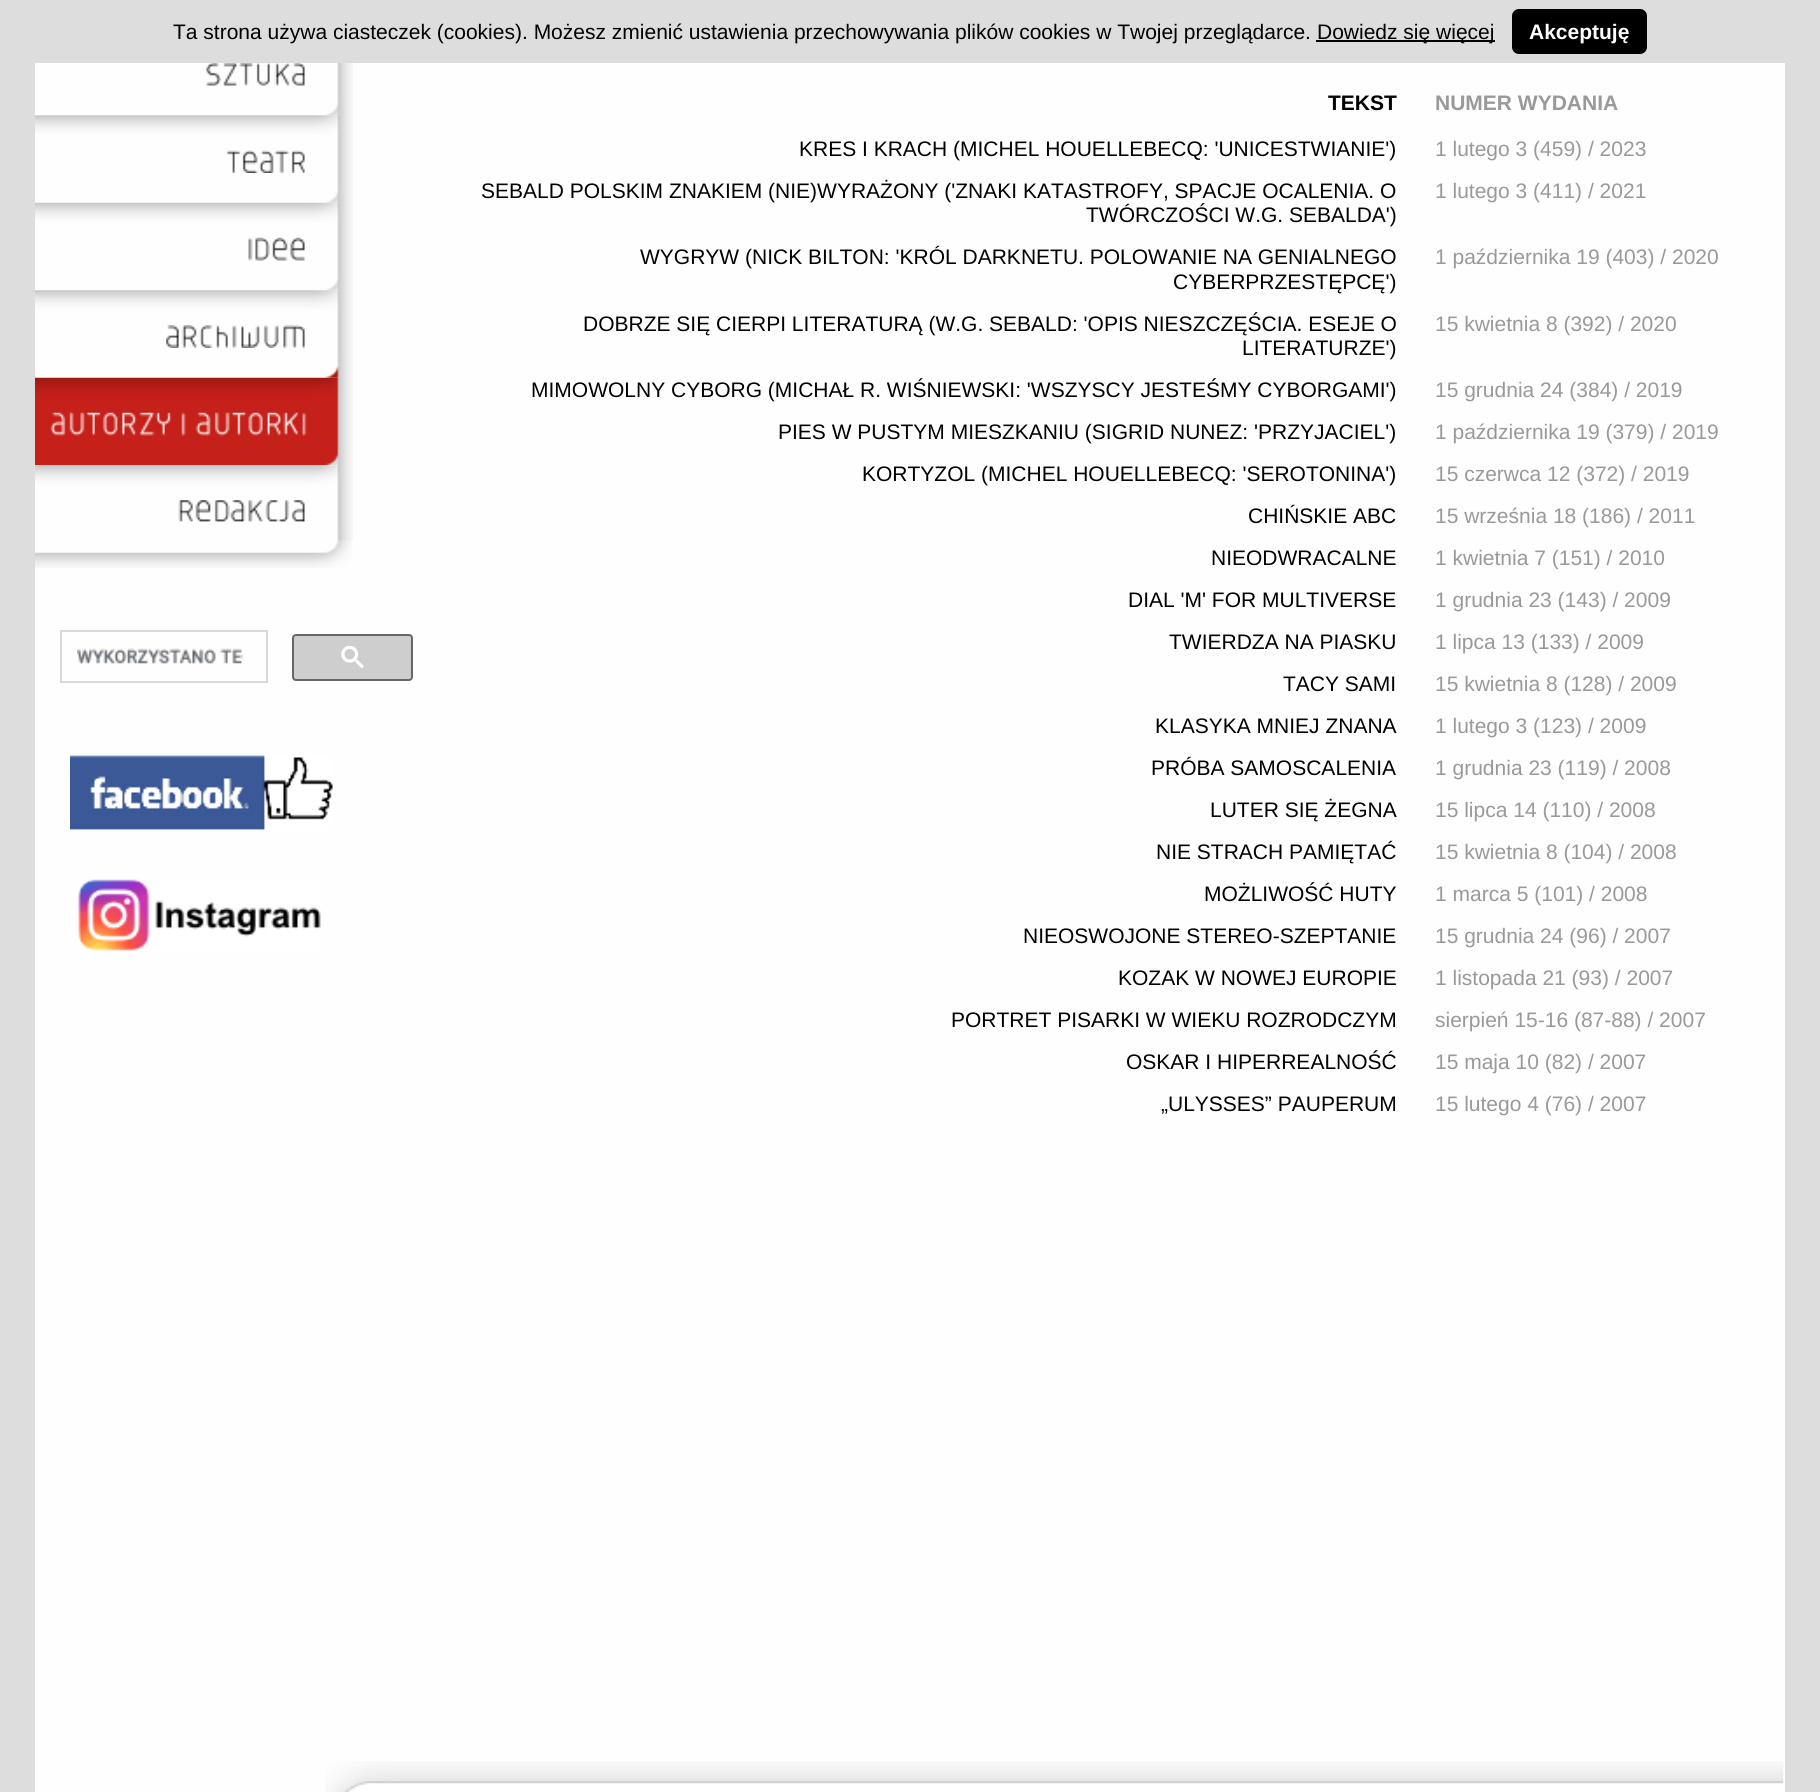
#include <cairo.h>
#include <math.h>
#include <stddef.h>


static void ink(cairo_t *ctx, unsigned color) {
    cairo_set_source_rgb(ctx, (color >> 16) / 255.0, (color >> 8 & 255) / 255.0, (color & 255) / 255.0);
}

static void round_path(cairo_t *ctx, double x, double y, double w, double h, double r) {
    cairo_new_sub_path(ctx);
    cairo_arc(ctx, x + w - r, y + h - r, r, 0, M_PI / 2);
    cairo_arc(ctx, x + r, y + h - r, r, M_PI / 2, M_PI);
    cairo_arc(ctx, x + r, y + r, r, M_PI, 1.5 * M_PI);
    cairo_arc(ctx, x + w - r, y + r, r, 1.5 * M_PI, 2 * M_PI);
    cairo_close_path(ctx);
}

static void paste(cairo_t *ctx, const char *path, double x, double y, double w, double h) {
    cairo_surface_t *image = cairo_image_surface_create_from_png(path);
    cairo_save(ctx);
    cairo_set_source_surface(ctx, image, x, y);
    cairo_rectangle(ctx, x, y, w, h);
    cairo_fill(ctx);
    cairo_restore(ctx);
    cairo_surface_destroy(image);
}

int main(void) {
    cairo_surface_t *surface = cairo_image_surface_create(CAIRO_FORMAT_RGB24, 1820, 1792);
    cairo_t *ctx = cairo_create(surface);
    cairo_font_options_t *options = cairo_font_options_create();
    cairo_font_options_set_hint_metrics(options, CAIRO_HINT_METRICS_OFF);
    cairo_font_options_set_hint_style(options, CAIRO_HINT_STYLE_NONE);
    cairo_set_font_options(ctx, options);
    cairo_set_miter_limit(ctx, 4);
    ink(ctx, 0xDDDDDD);
    cairo_paint(ctx);
    cairo_select_font_face(ctx, "Liberation Sans", CAIRO_FONT_SLANT_NORMAL, CAIRO_FONT_WEIGHT_NORMAL);
    cairo_set_font_size(ctx, 21);
    ink(ctx, 0x000000);
    cairo_move_to(ctx, 173, 39);
    cairo_show_text(ctx, "Ta strona używa ciasteczek (cookies). Możesz zmienić ustawienia przechowywania plików cookies w Twojej przeglądarce.");
    cairo_rectangle(ctx, 1316, 40, 179, 2);
    cairo_fill(ctx);
    cairo_move_to(ctx, 1317, 39);
    cairo_show_text(ctx, "Dowiedz się więcej");
    round_path(ctx, 1512, 9, 135, 45, 7);
    cairo_fill(ctx);
    cairo_select_font_face(ctx, "Liberation Sans", CAIRO_FONT_SLANT_NORMAL, CAIRO_FONT_WEIGHT_BOLD);
    ink(ctx, 0xFFFFFF);
    cairo_move_to(ctx, 1529, 39);
    cairo_show_text(ctx, "Akceptuję");
    ink(ctx, 0xFEFEFE);
    cairo_rectangle(ctx, 35, 63, 1750, 1729);
    cairo_fill(ctx);
    paste(ctx, "media/1.png", 35, 63, 318, 40);
    paste(ctx, "media/2.png", 206, 63, 99, 23);
    paste(ctx, "media/3.png", 326, 103, 27, 13);
    paste(ctx, "media/4.png", 35, 115, 318, 76);
    paste(ctx, "media/5.png", 227, 150, 78, 23);
    paste(ctx, "media/6.png", 326, 190, 27, 13);
    paste(ctx, "media/7.png", 35, 202, 318, 76);
    paste(ctx, "media/8.png", 248, 237, 57, 24);
    paste(ctx, "media/3.png", 326, 278, 27, 13);
    paste(ctx, "media/4.png", 35, 290, 318, 76);
    paste(ctx, "media/9.png", 166, 325, 140, 23);
    paste(ctx, "media/10.png", 325, 365, 28, 13);
    paste(ctx, "media/11.png", 35, 377, 318, 76);
    paste(ctx, "media/12.png", 50, 412, 257, 24);
    paste(ctx, "media/13.png", 35, 453, 318, 13);
    paste(ctx, "media/14.png", 35, 465, 318, 76);
    paste(ctx, "media/15.png", 178, 500, 127, 22);
    paste(ctx, "media/16.png", 35, 540, 317, 28);
    cairo_rectangle(ctx, 61, 631, 206, 51);
    ink(ctx, 0xD9D9D9);
    cairo_stroke(ctx);
    paste(ctx, "media/17.png", 77, 648, 167, 16);
    ink(ctx, 0xCECECE);
    round_path(ctx, 293, 635, 119, 45, 3);
    cairo_fill_preserve(ctx);
    ink(ctx, 0x666666);
    cairo_stroke(ctx);
    paste(ctx, "media/18.png", 341, 646, 23, 23);
    paste(ctx, "media/19.png", 70, 755, 263, 75);
    paste(ctx, "media/20.png", 78, 879, 243, 72);
    ink(ctx, 0x000000);
    cairo_move_to(ctx, 1328, 110);
    cairo_show_text(ctx, "TEKST");
    ink(ctx, 0x999999);
    cairo_move_to(ctx, 1435, 110);
    cairo_show_text(ctx, "NUMER WYDANIA");
    cairo_select_font_face(ctx, "Liberation Sans", CAIRO_FONT_SLANT_NORMAL, CAIRO_FONT_WEIGHT_NORMAL);
    ink(ctx, 0x000000);
    cairo_move_to(ctx, 799, 156);
    cairo_show_text(ctx, "KRES I KRACH (MICHEL HOUELLEBECQ: 'UNICESTWIANIE')");
    ink(ctx, 0x999999);
    cairo_move_to(ctx, 1435, 156);
    cairo_show_text(ctx, "1 lutego 3 (459) / 2023");
    ink(ctx, 0x000000);
    cairo_move_to(ctx, 481, 198);
    cairo_show_text(ctx, "SEBALD POLSKIM ZNAKIEM (NIE)WYRAŻONY ('ZNAKI KATASTROFY, SPACJE OCALENIA. O");
    cairo_move_to(ctx, 1086, 222);
    cairo_show_text(ctx, "TWÓRCZOŚCI W.G. SEBALDA')");
    ink(ctx, 0x999999);
    cairo_move_to(ctx, 1435, 198);
    cairo_show_text(ctx, "1 lutego 3 (411) / 2021");
    ink(ctx, 0x000000);
    cairo_move_to(ctx, 640, 264);
    cairo_show_text(ctx, "WYGRYW (NICK BILTON: 'KRÓL DARKNETU. POLOWANIE NA GENIALNEGO");
    cairo_move_to(ctx, 1173, 289);
    cairo_show_text(ctx, "CYBERPRZESTĘPCĘ')");
    ink(ctx, 0x999999);
    cairo_move_to(ctx, 1435, 264);
    cairo_show_text(ctx, "1 października 19 (403) / 2020");
    ink(ctx, 0x000000);
    cairo_move_to(ctx, 583, 331);
    cairo_show_text(ctx, "DOBRZE SIĘ CIERPI LITERATURĄ (W.G. SEBALD: 'OPIS NIESZCZĘŚCIA. ESEJE O");
    cairo_move_to(ctx, 1242, 355);
    cairo_show_text(ctx, "LITERATURZE')");
    ink(ctx, 0x999999);
    cairo_move_to(ctx, 1435, 331);
    cairo_show_text(ctx, "15 kwietnia 8 (392) / 2020");
    ink(ctx, 0x000000);
    cairo_move_to(ctx, 531, 397);
    cairo_show_text(ctx, "MIMOWOLNY CYBORG (MICHAŁ R. WIŚNIEWSKI: 'WSZYSCY JESTEŚMY CYBORGAMI')");
    ink(ctx, 0x999999);
    cairo_move_to(ctx, 1435, 397);
    cairo_show_text(ctx, "15 grudnia 24 (384) / 2019");
    ink(ctx, 0x000000);
    cairo_move_to(ctx, 778, 439);
    cairo_show_text(ctx, "PIES W PUSTYM MIESZKANIU (SIGRID NUNEZ: 'PRZYJACIEL')");
    ink(ctx, 0x999999);
    cairo_move_to(ctx, 1435, 439);
    cairo_show_text(ctx, "1 października 19 (379) / 2019");
    ink(ctx, 0x000000);
    cairo_move_to(ctx, 862, 481);
    cairo_show_text(ctx, "KORTYZOL (MICHEL HOUELLEBECQ: 'SEROTONINA')");
    ink(ctx, 0x999999);
    cairo_move_to(ctx, 1435, 481);
    cairo_show_text(ctx, "15 czerwca 12 (372) / 2019");
    ink(ctx, 0x000000);
    cairo_move_to(ctx, 1248, 523);
    cairo_show_text(ctx, "CHIŃSKIE ABC");
    ink(ctx, 0x999999);
    cairo_move_to(ctx, 1435, 523);
    cairo_show_text(ctx, "15 września 18 (186) / 2011");
    ink(ctx, 0x000000);
    cairo_move_to(ctx, 1211, 565);
    cairo_show_text(ctx, "NIEODWRACALNE");
    ink(ctx, 0x999999);
    cairo_move_to(ctx, 1435, 565);
    cairo_show_text(ctx, "1 kwietnia 7 (151) / 2010");
    ink(ctx, 0x000000);
    cairo_move_to(ctx, 1128, 607);
    cairo_show_text(ctx, "DIAL 'M' FOR MULTIVERSE");
    ink(ctx, 0x999999);
    cairo_move_to(ctx, 1435, 607);
    cairo_show_text(ctx, "1 grudnia 23 (143) / 2009");
    ink(ctx, 0x000000);
    cairo_move_to(ctx, 1169, 649);
    cairo_show_text(ctx, "TWIERDZA NA PIASKU");
    ink(ctx, 0x999999);
    cairo_move_to(ctx, 1435, 649);
    cairo_show_text(ctx, "1 lipca 13 (133) / 2009");
    ink(ctx, 0x000000);
    cairo_move_to(ctx, 1283, 691);
    cairo_show_text(ctx, "TACY SAMI");
    ink(ctx, 0x999999);
    cairo_move_to(ctx, 1435, 691);
    cairo_show_text(ctx, "15 kwietnia 8 (128) / 2009");
    ink(ctx, 0x000000);
    cairo_move_to(ctx, 1155, 733);
    cairo_show_text(ctx, "KLASYKA MNIEJ ZNANA");
    ink(ctx, 0x999999);
    cairo_move_to(ctx, 1435, 733);
    cairo_show_text(ctx, "1 lutego 3 (123) / 2009");
    ink(ctx, 0x000000);
    cairo_move_to(ctx, 1151, 775);
    cairo_show_text(ctx, "PRÓBA SAMOSCALENIA");
    ink(ctx, 0x999999);
    cairo_move_to(ctx, 1435, 775);
    cairo_show_text(ctx, "1 grudnia 23 (119) / 2008");
    ink(ctx, 0x000000);
    cairo_move_to(ctx, 1210, 817);
    cairo_show_text(ctx, "LUTER SIĘ ŻEGNA");
    ink(ctx, 0x999999);
    cairo_move_to(ctx, 1435, 817);
    cairo_show_text(ctx, "15 lipca 14 (110) / 2008");
    ink(ctx, 0x000000);
    cairo_move_to(ctx, 1156, 859);
    cairo_show_text(ctx, "NIE STRACH PAMIĘTAĆ");
    ink(ctx, 0x999999);
    cairo_move_to(ctx, 1435, 859);
    cairo_show_text(ctx, "15 kwietnia 8 (104) / 2008");
    ink(ctx, 0x000000);
    cairo_move_to(ctx, 1204, 901);
    cairo_show_text(ctx, "MOŻLIWOŚĆ HUTY");
    ink(ctx, 0x999999);
    cairo_move_to(ctx, 1435, 901);
    cairo_show_text(ctx, "1 marca 5 (101) / 2008");
    ink(ctx, 0x000000);
    cairo_move_to(ctx, 1023, 943);
    cairo_show_text(ctx, "NIEOSWOJONE STEREO-SZEPTANIE");
    ink(ctx, 0x999999);
    cairo_move_to(ctx, 1435, 943);
    cairo_show_text(ctx, "15 grudnia 24 (96) / 2007");
    ink(ctx, 0x000000);
    cairo_move_to(ctx, 1118, 985);
    cairo_show_text(ctx, "KOZAK W NOWEJ EUROPIE");
    ink(ctx, 0x999999);
    cairo_move_to(ctx, 1435, 985);
    cairo_show_text(ctx, "1 listopada 21 (93) / 2007");
    ink(ctx, 0x000000);
    cairo_move_to(ctx, 951, 1027);
    cairo_show_text(ctx, "PORTRET PISARKI W WIEKU ROZRODCZYM");
    ink(ctx, 0x999999);
    cairo_move_to(ctx, 1435, 1027);
    cairo_show_text(ctx, "sierpień 15-16 (87-88) / 2007");
    ink(ctx, 0x000000);
    cairo_move_to(ctx, 1126, 1069);
    cairo_show_text(ctx, "OSKAR I HIPERREALNOŚĆ");
    ink(ctx, 0x999999);
    cairo_move_to(ctx, 1435, 1069);
    cairo_show_text(ctx, "15 maja 10 (82) / 2007");
    ink(ctx, 0x000000);
    cairo_move_to(ctx, 1161, 1111);
    cairo_show_text(ctx, "„ULYSSES” PAUPERUM");
    ink(ctx, 0x999999);
    cairo_move_to(ctx, 1435, 1111);
    cairo_show_text(ctx, "15 lutego 4 (76) / 2007");
    paste(ctx, "media/21.png", 325, 1761, 1459, 31);
    cairo_surface_write_to_png(surface, "image.png");
    cairo_font_options_destroy(options);
    cairo_destroy(ctx);
    cairo_surface_destroy(surface);
    return 0;
}
